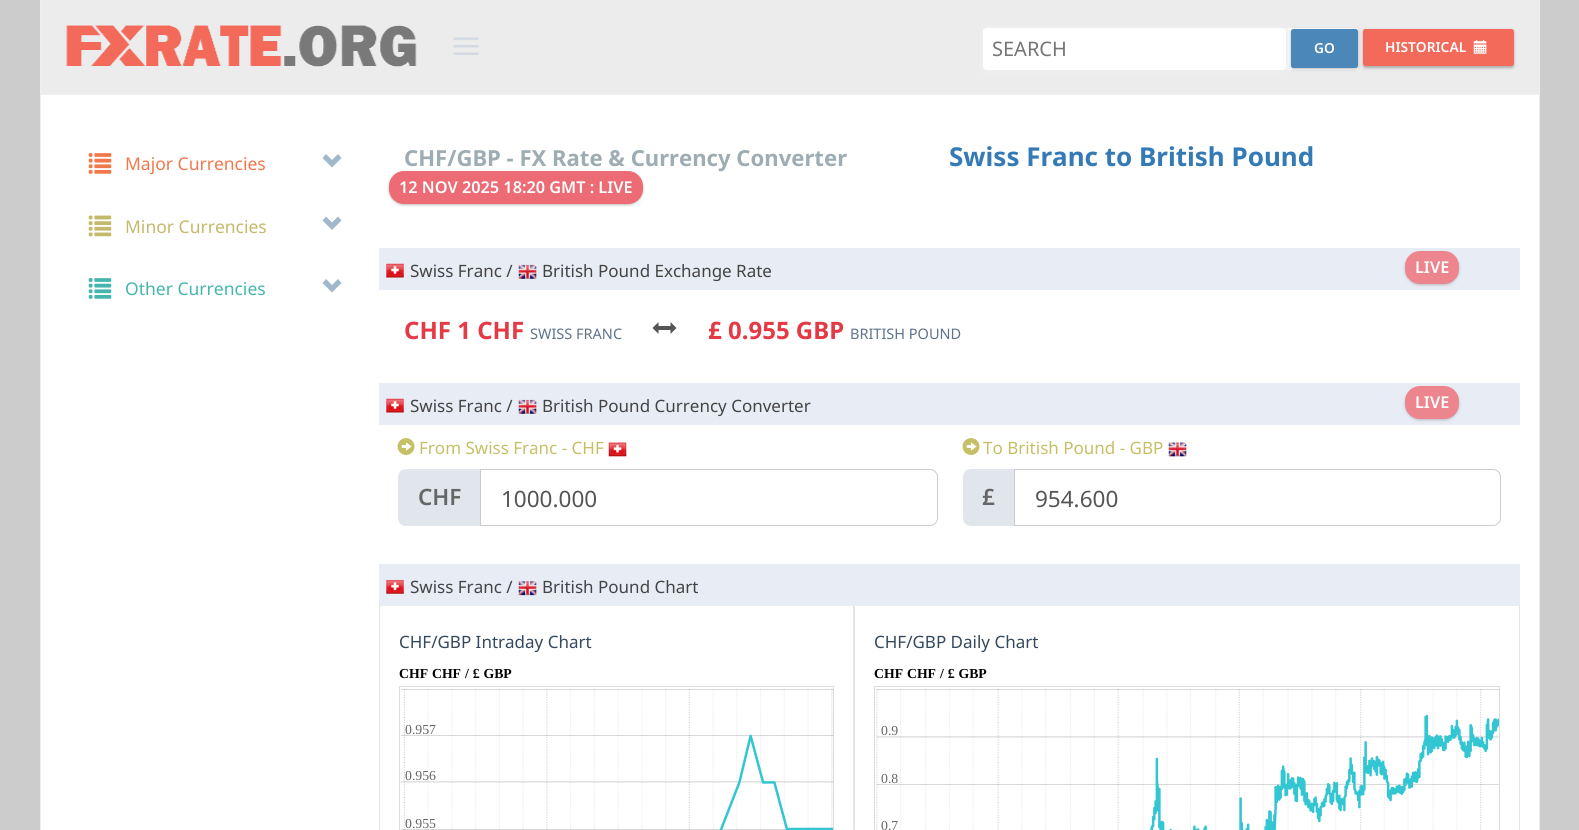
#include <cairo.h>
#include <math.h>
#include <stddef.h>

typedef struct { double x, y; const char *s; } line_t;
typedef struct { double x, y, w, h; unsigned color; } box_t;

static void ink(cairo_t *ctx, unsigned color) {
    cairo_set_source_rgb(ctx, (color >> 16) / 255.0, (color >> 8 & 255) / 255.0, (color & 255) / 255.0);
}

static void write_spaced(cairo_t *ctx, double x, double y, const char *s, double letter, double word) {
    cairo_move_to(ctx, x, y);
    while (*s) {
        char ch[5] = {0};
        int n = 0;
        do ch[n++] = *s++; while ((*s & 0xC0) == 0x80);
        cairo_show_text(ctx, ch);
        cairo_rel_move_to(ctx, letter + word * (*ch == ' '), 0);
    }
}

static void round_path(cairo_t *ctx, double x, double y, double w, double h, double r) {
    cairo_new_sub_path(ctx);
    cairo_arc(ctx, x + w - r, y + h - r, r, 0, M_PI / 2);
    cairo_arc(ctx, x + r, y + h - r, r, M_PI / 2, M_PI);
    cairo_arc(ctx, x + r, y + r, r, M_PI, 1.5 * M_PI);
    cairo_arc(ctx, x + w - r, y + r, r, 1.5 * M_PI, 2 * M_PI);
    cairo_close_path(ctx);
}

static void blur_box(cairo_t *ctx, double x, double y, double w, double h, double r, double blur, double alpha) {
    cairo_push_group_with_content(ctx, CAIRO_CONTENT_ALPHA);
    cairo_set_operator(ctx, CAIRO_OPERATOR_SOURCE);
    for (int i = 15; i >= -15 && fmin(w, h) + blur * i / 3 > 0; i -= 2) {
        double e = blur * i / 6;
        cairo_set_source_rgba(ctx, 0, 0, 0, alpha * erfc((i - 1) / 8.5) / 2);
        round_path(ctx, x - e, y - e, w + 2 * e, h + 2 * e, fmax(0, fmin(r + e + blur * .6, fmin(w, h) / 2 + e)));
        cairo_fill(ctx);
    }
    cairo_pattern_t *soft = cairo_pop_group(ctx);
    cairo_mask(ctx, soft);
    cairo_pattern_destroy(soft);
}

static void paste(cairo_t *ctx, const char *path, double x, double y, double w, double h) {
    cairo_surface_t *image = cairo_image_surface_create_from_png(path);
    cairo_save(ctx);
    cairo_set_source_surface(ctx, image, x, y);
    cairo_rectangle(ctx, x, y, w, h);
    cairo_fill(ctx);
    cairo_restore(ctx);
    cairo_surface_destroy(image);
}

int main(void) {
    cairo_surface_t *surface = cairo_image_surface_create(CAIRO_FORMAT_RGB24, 1579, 830);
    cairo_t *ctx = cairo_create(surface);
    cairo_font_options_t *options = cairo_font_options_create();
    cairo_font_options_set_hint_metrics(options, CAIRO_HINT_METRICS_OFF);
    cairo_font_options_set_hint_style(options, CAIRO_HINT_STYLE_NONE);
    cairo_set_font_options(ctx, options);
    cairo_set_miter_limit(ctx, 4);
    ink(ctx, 0xCCCCCC);
    cairo_paint(ctx);
    {
        static const box_t items[] = {
            {41, 0, 1498, 93, 0xECECEC},
            {1539, 0, 1, 94, 0xEEEEEE},
            {40, 93, 1500, 1, 0xEEEEEE},
            {40, 0, 1, 94, 0xEEEEEE},
        };
        for (size_t i = 0; i < sizeof items / sizeof *items; i++) {
            ink(ctx, items[i].color);
            cairo_rectangle(ctx, items[i].x, items[i].y, items[i].w, items[i].h);
            cairo_fill(ctx);
        }
    }
    paste(ctx, "media/1.png", 66, 25, 351, 42);
    paste(ctx, "media/2.png", 453, 37, 26, 18);
    ink(ctx, 0xFFFFFF);
    cairo_rectangle(ctx, 983, 28, 375, 42);
    cairo_fill(ctx);
    ink(ctx, 0xEEEEEE);
    blur_box(ctx, 980, 25, 309, 48, 6, 2, 1);
    ink(ctx, 0xFFFFFF);
    round_path(ctx, 983, 28, 303, 42, 4);
    cairo_fill(ctx);
    cairo_select_font_face(ctx, "Noto Sans", CAIRO_FONT_SLANT_NORMAL, CAIRO_FONT_WEIGHT_NORMAL);
    cairo_set_font_size(ctx, 20);
    ink(ctx, 0x757575);
    cairo_move_to(ctx, 992, 56);
    cairo_show_text(ctx, "SEARCH");
    ink(ctx, 0x000000);
    blur_box(ctx, 1291, 30, 67, 39, 2.5, 1, 0.18);
    blur_box(ctx, 1291, 30, 67, 39, 2.5, 2, 0.1);
    ink(ctx, 0x4C87B9);
    round_path(ctx, 1291, 29, 67, 39, 2.5);
    cairo_fill(ctx);
    cairo_select_font_face(ctx, "Noto Sans SemiBold", CAIRO_FONT_SLANT_NORMAL, CAIRO_FONT_WEIGHT_NORMAL);
    cairo_set_font_size(ctx, 13.75);
    ink(ctx, 0xFFFFFF);
    cairo_move_to(ctx, 1314, 53);
    cairo_show_text(ctx, "GO");
    ink(ctx, 0x000000);
    blur_box(ctx, 1363, 30, 151, 38, 2.5, 1, 0.18);
    blur_box(ctx, 1363, 30, 151, 38, 2.5, 2, 0.1);
    ink(ctx, 0xF36A5A);
    round_path(ctx, 1363, 29, 151, 37, 2.5);
    cairo_fill(ctx);
    ink(ctx, 0xFFFFFF);
    cairo_move_to(ctx, 1385, 52);
    cairo_show_text(ctx, "HISTORICAL");
    paste(ctx, "media/3.png", 1473, 40, 14, 14);
    cairo_rectangle(ctx, 40.5, 94.5, 1499, 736);
    cairo_fill_preserve(ctx);
    ink(ctx, 0xEEEEEE);
    cairo_set_line_width(ctx, 1);
    cairo_stroke(ctx);
    paste(ctx, "media/4.png", 88, 153, 24, 21);
    cairo_select_font_face(ctx, "Noto Sans", CAIRO_FONT_SLANT_NORMAL, CAIRO_FONT_WEIGHT_NORMAL);
    cairo_set_font_size(ctx, 17.5);
    ink(ctx, 0xF2784B);
    cairo_move_to(ctx, 125, 170);
    cairo_show_text(ctx, "Major Currencies");
    ink(ctx, 0xA0B8C9);
    cairo_new_path(ctx);
    cairo_move_to(ctx, 322.5, 158);
    cairo_line_to(ctx, 332, 167.5);
    cairo_line_to(ctx, 341.5, 158);
    cairo_line_to(ctx, 338, 154);
    cairo_line_to(ctx, 332, 160);
    cairo_line_to(ctx, 326, 154);
    cairo_close_path(ctx);
    cairo_fill(ctx);
    paste(ctx, "media/5.png", 88, 215, 24, 22);
    ink(ctx, 0xC5B96B);
    cairo_move_to(ctx, 125, 233);
    cairo_show_text(ctx, "Minor Currencies");
    ink(ctx, 0xA0B8C9);
    cairo_new_path(ctx);
    cairo_move_to(ctx, 322.5, 220.5);
    cairo_line_to(ctx, 332, 230);
    cairo_line_to(ctx, 341.5, 220.5);
    cairo_line_to(ctx, 338, 216.5);
    cairo_line_to(ctx, 332, 222.5);
    cairo_line_to(ctx, 326, 216.5);
    cairo_close_path(ctx);
    cairo_fill(ctx);
    paste(ctx, "media/6.png", 88, 278, 24, 21);
    ink(ctx, 0x44B6AE);
    cairo_move_to(ctx, 125, 295);
    cairo_show_text(ctx, "Other Currencies");
    ink(ctx, 0xA0B8C9);
    cairo_new_path(ctx);
    cairo_move_to(ctx, 322.5, 283);
    cairo_line_to(ctx, 332, 292.5);
    cairo_line_to(ctx, 341.5, 283);
    cairo_line_to(ctx, 338, 279);
    cairo_line_to(ctx, 332, 285);
    cairo_line_to(ctx, 326, 279);
    cairo_close_path(ctx);
    cairo_fill(ctx);
    cairo_select_font_face(ctx, "Noto Sans", CAIRO_FONT_SLANT_NORMAL, CAIRO_FONT_WEIGHT_BOLD);
    cairo_set_font_size(ctx, 22.1);
    ink(ctx, 0x9EACB4);
    cairo_move_to(ctx, 404, 166);
    cairo_show_text(ctx, "CHF/GBP - FX Rate & Currency Converter");
    ink(ctx, 0x000000);
    blur_box(ctx, 389, 173, 254, 32, 15, 1, 0.18);
    blur_box(ctx, 389, 173, 254, 32, 15, 2, 0.1);
    ink(ctx, 0xED6B75);
    round_path(ctx, 389, 171, 254, 33, 15);
    cairo_fill(ctx);
    cairo_select_font_face(ctx, "Noto Sans SemiBold", CAIRO_FONT_SLANT_NORMAL, CAIRO_FONT_WEIGHT_NORMAL);
    cairo_set_font_size(ctx, 16.25);
    ink(ctx, 0xFFFFFF);
    cairo_move_to(ctx, 399, 193);
    cairo_show_text(ctx, "12 NOV 2025 18:20 GMT : LIVE");
    cairo_select_font_face(ctx, "Noto Sans", CAIRO_FONT_SLANT_NORMAL, CAIRO_FONT_WEIGHT_BOLD);
    cairo_set_font_size(ctx, 26);
    ink(ctx, 0x337AB7);
    cairo_move_to(ctx, 949, 166);
    cairo_show_text(ctx, "Swiss Franc to British Pound");
    ink(ctx, 0xE8ECF4);
    cairo_rectangle(ctx, 379, 248, 1141, 42);
    cairo_fill(ctx);
    paste(ctx, "media/7.png", 386, 263, 18, 15);
    cairo_select_font_face(ctx, "Noto Sans", CAIRO_FONT_SLANT_NORMAL, CAIRO_FONT_WEIGHT_NORMAL);
    cairo_set_font_size(ctx, 17);
    ink(ctx, 0x444444);
    cairo_move_to(ctx, 410, 277);
    cairo_show_text(ctx, "Swiss Franc /");
    paste(ctx, "media/8.png", 518, 264, 19, 15);
    cairo_move_to(ctx, 542, 277);
    cairo_show_text(ctx, "British Pound Exchange Rate");
    ink(ctx, 0x2E2F31);
    blur_box(ctx, 1405, 253, 54, 32, 15, 1, 0.18);
    blur_box(ctx, 1405, 253, 54, 32, 15, 2, 0.1);
    ink(ctx, 0xEC858E);
    round_path(ctx, 1405, 251, 54, 33, 15);
    cairo_fill(ctx);
    cairo_select_font_face(ctx, "Noto Sans SemiBold", CAIRO_FONT_SLANT_NORMAL, CAIRO_FONT_WEIGHT_NORMAL);
    cairo_set_font_size(ctx, 16.25);
    ink(ctx, 0xFFFFFF);
    cairo_move_to(ctx, 1415, 273);
    cairo_show_text(ctx, "LIVE");
    cairo_select_font_face(ctx, "Noto Sans", CAIRO_FONT_SLANT_NORMAL, CAIRO_FONT_WEIGHT_BOLD);
    cairo_set_font_size(ctx, 24);
    ink(ctx, 0xE43A45);
    cairo_move_to(ctx, 404, 339);
    cairo_show_text(ctx, "CHF 1 CHF");
    cairo_select_font_face(ctx, "Noto Sans", CAIRO_FONT_SLANT_NORMAL, CAIRO_FONT_WEIGHT_NORMAL);
    cairo_set_font_size(ctx, 14.5);
    ink(ctx, 0x5E738B);
    cairo_move_to(ctx, 530, 339);
    cairo_show_text(ctx, "SWISS FRANC");
    paste(ctx, "media/9.png", 652, 322, 25, 12);
    cairo_select_font_face(ctx, "Noto Sans", CAIRO_FONT_SLANT_NORMAL, CAIRO_FONT_WEIGHT_BOLD);
    cairo_set_font_size(ctx, 24);
    ink(ctx, 0xE43A45);
    cairo_move_to(ctx, 708, 339);
    cairo_show_text(ctx, "£ 0.955 GBP");
    cairo_select_font_face(ctx, "Noto Sans", CAIRO_FONT_SLANT_NORMAL, CAIRO_FONT_WEIGHT_NORMAL);
    cairo_set_font_size(ctx, 14.5);
    ink(ctx, 0x5E738B);
    cairo_move_to(ctx, 850, 339);
    cairo_show_text(ctx, "BRITISH POUND");
    ink(ctx, 0xE8ECF4);
    cairo_rectangle(ctx, 379, 383, 1141, 42);
    cairo_fill(ctx);
    paste(ctx, "media/7.png", 386, 398, 18, 15);
    cairo_set_font_size(ctx, 17);
    ink(ctx, 0x444444);
    cairo_move_to(ctx, 410, 412);
    cairo_show_text(ctx, "Swiss Franc /");
    paste(ctx, "media/8.png", 518, 399, 19, 15);
    cairo_move_to(ctx, 542, 412);
    cairo_show_text(ctx, "British Pound Currency Converter");
    ink(ctx, 0x2E2F31);
    blur_box(ctx, 1405, 388, 54, 32, 15, 1, 0.18);
    blur_box(ctx, 1405, 388, 54, 32, 15, 2, 0.1);
    ink(ctx, 0xEC858E);
    round_path(ctx, 1405, 386, 54, 33, 15);
    cairo_fill(ctx);
    cairo_select_font_face(ctx, "Noto Sans SemiBold", CAIRO_FONT_SLANT_NORMAL, CAIRO_FONT_WEIGHT_NORMAL);
    cairo_set_font_size(ctx, 16.25);
    ink(ctx, 0xFFFFFF);
    cairo_move_to(ctx, 1415, 408);
    cairo_show_text(ctx, "LIVE");
    paste(ctx, "media/10.png", 397, 438, 18, 17);
    cairo_select_font_face(ctx, "Noto Sans", CAIRO_FONT_SLANT_NORMAL, CAIRO_FONT_WEIGHT_NORMAL);
    cairo_set_font_size(ctx, 17);
    ink(ctx, 0xC5BF66);
    cairo_move_to(ctx, 419, 454);
    cairo_show_text(ctx, "From Swiss Franc - CHF");
    paste(ctx, "media/11.png", 608, 442, 19, 15);
    ink(ctx, 0xE1E5EC);
    cairo_new_path(ctx);
    cairo_move_to(ctx, 406, 469);
    cairo_line_to(ctx, 481, 469);
    cairo_line_to(ctx, 481, 526);
    cairo_line_to(ctx, 406, 526);
    cairo_curve_to(ctx, 401.5, 526, 398, 522.5, 398, 518);
    cairo_line_to(ctx, 398, 477);
    cairo_curve_to(ctx, 398, 472.5, 401.5, 469, 406, 469);
    cairo_close_path(ctx);
    cairo_fill(ctx);
    cairo_select_font_face(ctx, "Noto Sans SemiBold", CAIRO_FONT_SLANT_NORMAL, CAIRO_FONT_WEIGHT_NORMAL);
    cairo_set_font_size(ctx, 22.5);
    ink(ctx, 0x666666);
    cairo_move_to(ctx, 418, 505);
    cairo_show_text(ctx, "CHF");
    ink(ctx, 0xFFFFFF);
    cairo_new_path(ctx);
    cairo_move_to(ctx, 480.5, 469.5);
    cairo_line_to(ctx, 930, 469.5);
    cairo_curve_to(ctx, 934, 469.5, 937.5, 473, 937.5, 477);
    cairo_line_to(ctx, 937.5, 518);
    cairo_curve_to(ctx, 937.5, 522, 934, 525.5, 930, 525.5);
    cairo_line_to(ctx, 480.5, 525.5);
    cairo_close_path(ctx);
    cairo_fill_preserve(ctx);
    ink(ctx, 0xCCCCCC);
    cairo_stroke(ctx);
    cairo_select_font_face(ctx, "Noto Sans", CAIRO_FONT_SLANT_NORMAL, CAIRO_FONT_WEIGHT_NORMAL);
    ink(ctx, 0x555555);
    cairo_move_to(ctx, 501, 507);
    cairo_show_text(ctx, "1000.000");
    paste(ctx, "media/10.png", 962, 438, 18, 17);
    cairo_set_font_size(ctx, 17);
    ink(ctx, 0xC5BF66);
    cairo_move_to(ctx, 983, 454);
    cairo_show_text(ctx, "To British Pound - GBP");
    paste(ctx, "media/12.png", 1168, 442, 19, 15);
    ink(ctx, 0xE1E5EC);
    cairo_new_path(ctx);
    cairo_move_to(ctx, 971, 469);
    cairo_line_to(ctx, 1015, 469);
    cairo_line_to(ctx, 1015, 526);
    cairo_line_to(ctx, 971, 526);
    cairo_curve_to(ctx, 966.5, 526, 963, 522.5, 963, 518);
    cairo_line_to(ctx, 963, 477);
    cairo_curve_to(ctx, 963, 472.5, 966.5, 469, 971, 469);
    cairo_close_path(ctx);
    cairo_fill(ctx);
    cairo_select_font_face(ctx, "Noto Sans SemiBold", CAIRO_FONT_SLANT_NORMAL, CAIRO_FONT_WEIGHT_NORMAL);
    cairo_set_font_size(ctx, 22.5);
    ink(ctx, 0x666666);
    cairo_move_to(ctx, 982, 505);
    cairo_show_text(ctx, "£");
    ink(ctx, 0xFFFFFF);
    cairo_new_path(ctx);
    cairo_move_to(ctx, 1014.5, 469.5);
    cairo_line_to(ctx, 1493, 469.5);
    cairo_curve_to(ctx, 1497, 469.5, 1500.5, 473, 1500.5, 477);
    cairo_line_to(ctx, 1500.5, 518);
    cairo_curve_to(ctx, 1500.5, 522, 1497, 525.5, 1493, 525.5);
    cairo_line_to(ctx, 1014.5, 525.5);
    cairo_close_path(ctx);
    cairo_fill_preserve(ctx);
    ink(ctx, 0xCCCCCC);
    cairo_stroke(ctx);
    cairo_select_font_face(ctx, "Noto Sans", CAIRO_FONT_SLANT_NORMAL, CAIRO_FONT_WEIGHT_NORMAL);
    ink(ctx, 0x555555);
    cairo_move_to(ctx, 1035, 507);
    cairo_show_text(ctx, "954.600");
    ink(ctx, 0xE8ECF4);
    cairo_rectangle(ctx, 379, 564, 1141, 42);
    cairo_fill(ctx);
    paste(ctx, "media/13.png", 386, 579, 18, 15);
    cairo_set_font_size(ctx, 17);
    ink(ctx, 0x444444);
    cairo_move_to(ctx, 410, 593);
    cairo_show_text(ctx, "Swiss Franc /");
    paste(ctx, "media/14.png", 518, 581, 19, 15);
    cairo_move_to(ctx, 542, 593);
    cairo_show_text(ctx, "British Pound Chart");
    ink(ctx, 0xE5E5E5);
    cairo_rectangle(ctx, 853, 606, 2, 224);
    cairo_fill(ctx);
    cairo_rectangle(ctx, 379, 606, 1, 224);
    cairo_fill(ctx);
    ink(ctx, 0x34495E);
    cairo_move_to(ctx, 399, 648);
    cairo_show_text(ctx, "CHF/GBP Intraday Chart");
    cairo_select_font_face(ctx, "Liberation Serif", CAIRO_FONT_SLANT_NORMAL, CAIRO_FONT_WEIGHT_BOLD);
    cairo_set_font_size(ctx, 13.75);
    ink(ctx, 0x000000);
    write_spaced(ctx, 399, 678, "CHF CHF / £ GBP", 0, 0.5);
    cairo_rectangle(ctx, 399.5, 686.5, 434, 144);
    ink(ctx, 0xDDDDDD);
    cairo_stroke(ctx);
    paste(ctx, "media/15.png", 400, 689, 433, 141);
    cairo_select_font_face(ctx, "Liberation Serif", CAIRO_FONT_SLANT_NORMAL, CAIRO_FONT_WEIGHT_NORMAL);
    ink(ctx, 0x666666);
    {
        static const line_t items[] = {
            {405, 734, "0.957"},
            {405, 780, "0.956"},
            {405, 828, "0.955"},
        };
        for (size_t i = 0; i < sizeof items / sizeof *items; i++) {
            cairo_move_to(ctx, items[i].x, items[i].y);
            cairo_show_text(ctx, items[i].s);
        }
    }
    ink(ctx, 0xE5E5E5);
    cairo_rectangle(ctx, 1519, 606, 1, 224);
    cairo_fill(ctx);
    cairo_select_font_face(ctx, "Noto Sans", CAIRO_FONT_SLANT_NORMAL, CAIRO_FONT_WEIGHT_NORMAL);
    cairo_set_font_size(ctx, 17);
    ink(ctx, 0x34495E);
    cairo_move_to(ctx, 874, 648);
    cairo_show_text(ctx, "CHF/GBP Daily Chart");
    cairo_select_font_face(ctx, "Liberation Serif", CAIRO_FONT_SLANT_NORMAL, CAIRO_FONT_WEIGHT_BOLD);
    cairo_set_font_size(ctx, 13.75);
    ink(ctx, 0x000000);
    write_spaced(ctx, 874, 678, "CHF CHF / £ GBP", 0, 0.5);
    cairo_rectangle(ctx, 874.5, 686.5, 625, 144);
    ink(ctx, 0xDDDDDD);
    cairo_stroke(ctx);
    paste(ctx, "media/16.png", 876, 689, 623, 141);
    cairo_select_font_face(ctx, "Liberation Serif", CAIRO_FONT_SLANT_NORMAL, CAIRO_FONT_WEIGHT_NORMAL);
    ink(ctx, 0x666666);
    {
        static const line_t items[] = {
            {881, 735, "0.9"},
            {881, 783, "0.8"},
            {881, 830, "0.7"},
        };
        for (size_t i = 0; i < sizeof items / sizeof *items; i++) {
            cairo_move_to(ctx, items[i].x, items[i].y);
            cairo_show_text(ctx, items[i].s);
        }
    }
    cairo_surface_write_to_png(surface, "image.png");
    cairo_font_options_destroy(options);
    cairo_destroy(ctx);
    cairo_surface_destroy(surface);
    return 0;
}
